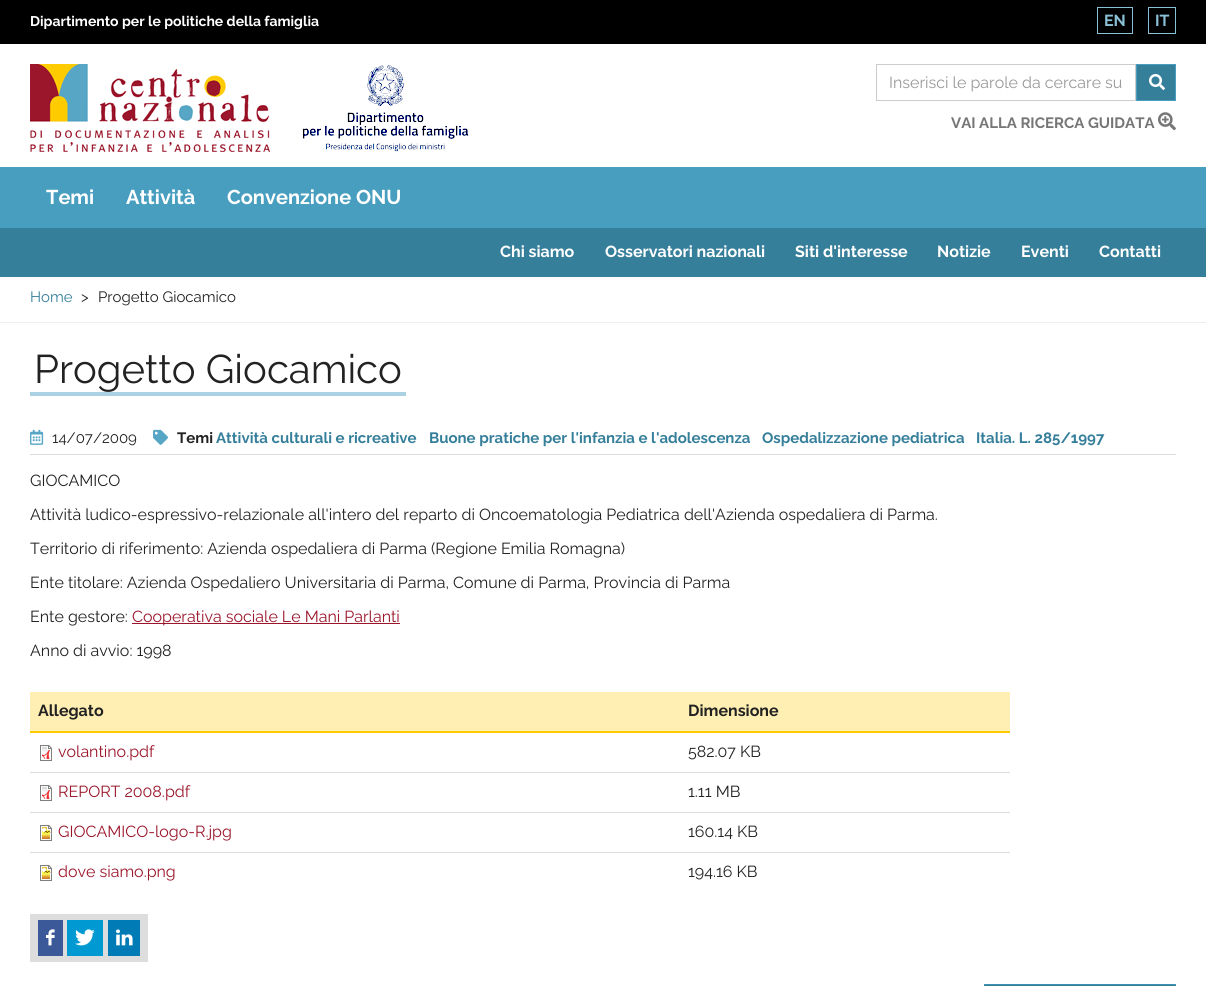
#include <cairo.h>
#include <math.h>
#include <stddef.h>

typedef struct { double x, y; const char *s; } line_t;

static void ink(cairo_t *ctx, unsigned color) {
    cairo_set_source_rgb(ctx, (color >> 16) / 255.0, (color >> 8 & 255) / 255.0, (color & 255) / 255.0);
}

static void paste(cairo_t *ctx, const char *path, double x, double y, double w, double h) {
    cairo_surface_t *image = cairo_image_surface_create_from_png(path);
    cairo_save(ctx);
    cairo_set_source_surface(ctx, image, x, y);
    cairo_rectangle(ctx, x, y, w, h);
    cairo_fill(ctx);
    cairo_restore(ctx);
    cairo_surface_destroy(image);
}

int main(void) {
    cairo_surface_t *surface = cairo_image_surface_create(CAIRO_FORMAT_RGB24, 1206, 986);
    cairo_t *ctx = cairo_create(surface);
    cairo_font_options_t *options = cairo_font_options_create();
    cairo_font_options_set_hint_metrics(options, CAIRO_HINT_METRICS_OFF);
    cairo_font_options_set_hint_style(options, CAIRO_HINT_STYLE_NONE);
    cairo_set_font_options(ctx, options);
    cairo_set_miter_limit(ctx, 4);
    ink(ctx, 0xFFFFFF);
    cairo_paint(ctx);
    ink(ctx, 0x000000);
    cairo_rectangle(ctx, 0, 0, 1206, 44);
    cairo_fill(ctx);
    cairo_select_font_face(ctx, "Raleway", CAIRO_FONT_SLANT_NORMAL, CAIRO_FONT_WEIGHT_BOLD);
    cairo_set_font_size(ctx, 14);
    ink(ctx, 0xFFFFFF);
    cairo_move_to(ctx, 30, 26);
    cairo_show_text(ctx, "Dipartimento per le politiche della famiglia");
    cairo_rectangle(ctx, 1097.5, 7.5, 35, 26);
    ink(ctx, 0x89C0D6);
    cairo_set_line_width(ctx, 1);
    cairo_stroke(ctx);
    cairo_set_font_size(ctx, 16);
    cairo_move_to(ctx, 1104, 26);
    cairo_show_text(ctx, "EN");
    cairo_rectangle(ctx, 1148.5, 7.5, 27, 26);
    cairo_stroke(ctx);
    cairo_move_to(ctx, 1155, 26);
    cairo_show_text(ctx, "IT");
    paste(ctx, "media/1.png", 30, 64, 240, 88);
    paste(ctx, "media/2.png", 302, 65, 167, 87);
    cairo_rectangle(ctx, 876.5, 64.5, 259, 36);
    ink(ctx, 0xCCCCCC);
    cairo_stroke(ctx);
    cairo_select_font_face(ctx, "Raleway", CAIRO_FONT_SLANT_NORMAL, CAIRO_FONT_WEIGHT_NORMAL);
    ink(ctx, 0x999999);
    cairo_move_to(ctx, 889, 88);
    cairo_show_text(ctx, "Inserisci le parole da cercare su");
    ink(ctx, 0x367F9B);
    cairo_rectangle(ctx, 1136.5, 64.5, 39, 36);
    cairo_fill_preserve(ctx);
    ink(ctx, 0x489EBF);
    cairo_stroke(ctx);
    paste(ctx, "media/3.png", 1149, 74, 16, 16);
    cairo_select_font_face(ctx, "Raleway", CAIRO_FONT_SLANT_NORMAL, CAIRO_FONT_WEIGHT_BOLD);
    cairo_set_font_size(ctx, 15);
    ink(ctx, 0x767676);
    cairo_move_to(ctx, 951, 128);
    cairo_show_text(ctx, "VAI ALLA RICERCA GUIDATA");
    paste(ctx, "media/4.png", 1158, 112, 18, 19);
    ink(ctx, 0x489EBF);
    cairo_rectangle(ctx, 0, 167, 1206, 61);
    cairo_fill(ctx);
    cairo_set_font_size(ctx, 20);
    ink(ctx, 0xFFFFFF);
    {
        static const line_t items[] = {
            {46, 204, "Temi"},
            {126, 204, "Attività"},
            {227, 204, "Convenzione ONU"},
        };
        for (size_t i = 0; i < sizeof items / sizeof *items; i++) {
            cairo_move_to(ctx, items[i].x, items[i].y);
            cairo_show_text(ctx, items[i].s);
        }
    }
    ink(ctx, 0x367F9B);
    cairo_rectangle(ctx, 0, 228, 1206, 49);
    cairo_fill(ctx);
    cairo_set_font_size(ctx, 16);
    ink(ctx, 0xFFFFFF);
    {
        static const line_t items[] = {
            {500, 257, "Chi siamo"},
            {605, 257, "Osservatori nazionali"},
            {795, 257, "Siti d'interesse"},
            {937, 257, "Notizie"},
            {1021, 257, "Eventi"},
            {1099, 257, "Contatti"},
        };
        for (size_t i = 0; i < sizeof items / sizeof *items; i++) {
            cairo_move_to(ctx, items[i].x, items[i].y);
            cairo_show_text(ctx, items[i].s);
        }
    }
    ink(ctx, 0xEEEEEE);
    cairo_rectangle(ctx, 0, 322, 1206, 1);
    cairo_fill(ctx);
    cairo_select_font_face(ctx, "Raleway", CAIRO_FONT_SLANT_NORMAL, CAIRO_FONT_WEIGHT_NORMAL);
    cairo_set_font_size(ctx, 15);
    ink(ctx, 0x367F9B);
    cairo_move_to(ctx, 30, 302);
    cairo_show_text(ctx, "Home");
    ink(ctx, 0x222222);
    cairo_move_to(ctx, 81, 302);
    cairo_show_text(ctx, ">");
    cairo_move_to(ctx, 98, 302);
    cairo_show_text(ctx, "Progetto Giocamico");
    cairo_set_font_size(ctx, 40);
    cairo_move_to(ctx, 34, 383);
    cairo_show_text(ctx, "Progetto Giocamico");
    ink(ctx, 0xABD2E2);
    cairo_rectangle(ctx, 30, 392, 376, 4);
    cairo_fill(ctx);
    ink(ctx, 0xDDDDDD);
    cairo_rectangle(ctx, 30, 454, 1146, 1);
    cairo_fill(ctx);
    paste(ctx, "media/5.png", 30, 429, 14, 16);
    cairo_set_font_size(ctx, 15);
    ink(ctx, 0x222222);
    cairo_move_to(ctx, 52, 443);
    cairo_show_text(ctx, "14/07/2009");
    paste(ctx, "media/6.png", 153, 429, 15, 16);
    cairo_select_font_face(ctx, "Raleway", CAIRO_FONT_SLANT_NORMAL, CAIRO_FONT_WEIGHT_BOLD);
    cairo_move_to(ctx, 177, 443);
    cairo_show_text(ctx, "Temi");
    ink(ctx, 0x367F9B);
    {
        static const line_t items[] = {
            {216, 443, "Attività culturali e ricreative"},
            {429, 443, "Buone pratiche per l'infanzia e l'adolescenza"},
            {762, 443, "Ospedalizzazione pediatrica"},
            {976, 443, "Italia. L. 285/1997"},
        };
        for (size_t i = 0; i < sizeof items / sizeof *items; i++) {
            cairo_move_to(ctx, items[i].x, items[i].y);
            cairo_show_text(ctx, items[i].s);
        }
    }
    cairo_select_font_face(ctx, "Raleway", CAIRO_FONT_SLANT_NORMAL, CAIRO_FONT_WEIGHT_NORMAL);
    cairo_set_font_size(ctx, 16);
    ink(ctx, 0x222222);
    {
        static const line_t items[] = {
            {30, 486, "GIOCAMICO"},
            {30, 520, "Attività ludico-espressivo-relazionale all'intero del reparto di Oncoematologia Pediatrica dell'Azienda ospedaliera di Parma."},
            {30, 554, "Territorio di riferimento: Azienda ospedaliera di Parma (Regione Emilia Romagna)"},
            {30, 588, "Ente titolare: Azienda Ospedaliero Universitaria di Parma, Comune di Parma, Provincia di Parma"},
            {30, 622, "Ente gestore:"},
        };
        for (size_t i = 0; i < sizeof items / sizeof *items; i++) {
            cairo_move_to(ctx, items[i].x, items[i].y);
            cairo_show_text(ctx, items[i].s);
        }
    }
    ink(ctx, 0x9B162B);
    cairo_rectangle(ctx, 132, 623, 268, 1);
    cairo_fill(ctx);
    cairo_move_to(ctx, 132, 622);
    cairo_show_text(ctx, "Cooperativa sociale Le Mani Parlanti");
    ink(ctx, 0x222222);
    cairo_move_to(ctx, 30, 656);
    cairo_show_text(ctx, "Anno di avvio: 1998");
    ink(ctx, 0xFFEFB2);
    cairo_rectangle(ctx, 30, 692, 980, 39);
    cairo_fill(ctx);
    cairo_select_font_face(ctx, "Raleway", CAIRO_FONT_SLANT_NORMAL, CAIRO_FONT_WEIGHT_BOLD);
    ink(ctx, 0x222222);
    cairo_move_to(ctx, 38, 716);
    cairo_show_text(ctx, "Allegato");
    ink(ctx, 0xFECB00);
    cairo_rectangle(ctx, 30, 731, 980, 2);
    cairo_fill(ctx);
    ink(ctx, 0x222222);
    cairo_move_to(ctx, 688, 716);
    cairo_show_text(ctx, "Dimensione");
    paste(ctx, "media/7.png", 40, 745, 12, 16);
    cairo_select_font_face(ctx, "Raleway", CAIRO_FONT_SLANT_NORMAL, CAIRO_FONT_WEIGHT_NORMAL);
    ink(ctx, 0x9B162B);
    cairo_move_to(ctx, 58, 757);
    cairo_show_text(ctx, "volantino.pdf");
    ink(ctx, 0x222222);
    cairo_move_to(ctx, 688, 757);
    cairo_show_text(ctx, "582.07 KB");
    paste(ctx, "media/7.png", 40, 785, 12, 16);
    ink(ctx, 0x9B162B);
    cairo_move_to(ctx, 58, 797);
    cairo_show_text(ctx, "REPORT 2008.pdf");
    ink(ctx, 0xDDDDDD);
    cairo_rectangle(ctx, 30, 772, 980, 1);
    cairo_fill(ctx);
    ink(ctx, 0x222222);
    cairo_move_to(ctx, 688, 797);
    cairo_show_text(ctx, "1.11 MB");
    paste(ctx, "media/8.png", 40, 825, 12, 16);
    ink(ctx, 0x9B162B);
    cairo_move_to(ctx, 58, 837);
    cairo_show_text(ctx, "GIOCAMICO-logo-R.jpg");
    ink(ctx, 0xDDDDDD);
    cairo_rectangle(ctx, 30, 812, 980, 1);
    cairo_fill(ctx);
    ink(ctx, 0x222222);
    cairo_move_to(ctx, 688, 837);
    cairo_show_text(ctx, "160.14 KB");
    paste(ctx, "media/8.png", 40, 865, 12, 16);
    ink(ctx, 0x9B162B);
    cairo_move_to(ctx, 58, 877);
    cairo_show_text(ctx, "dove siamo.png");
    ink(ctx, 0xDDDDDD);
    cairo_rectangle(ctx, 30, 852, 980, 1);
    cairo_fill(ctx);
    ink(ctx, 0x222222);
    cairo_move_to(ctx, 688, 877);
    cairo_show_text(ctx, "194.16 KB");
    ink(ctx, 0xDDDDDD);
    cairo_rectangle(ctx, 30, 914, 118, 48);
    cairo_fill(ctx);
    ink(ctx, 0x3B5998);
    cairo_rectangle(ctx, 38, 920, 25, 36);
    cairo_fill(ctx);
    paste(ctx, "media/9.png", 46, 929, 9, 17);
    ink(ctx, 0x0099D2);
    cairo_rectangle(ctx, 67, 920, 36, 36);
    cairo_fill(ctx);
    paste(ctx, "media/10.png", 75, 929, 20, 17);
    ink(ctx, 0x007BB6);
    cairo_rectangle(ctx, 108, 920, 32, 36);
    cairo_fill(ctx);
    paste(ctx, "media/11.png", 116, 929, 17, 17);
    ink(ctx, 0x367F9B);
    cairo_rectangle(ctx, 984.5, 984.5, 191, 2);
    cairo_fill_preserve(ctx);
    ink(ctx, 0x3D92B3);
    cairo_stroke(ctx);
    cairo_surface_write_to_png(surface, "image.png");
    cairo_font_options_destroy(options);
    cairo_destroy(ctx);
    cairo_surface_destroy(surface);
    return 0;
}
